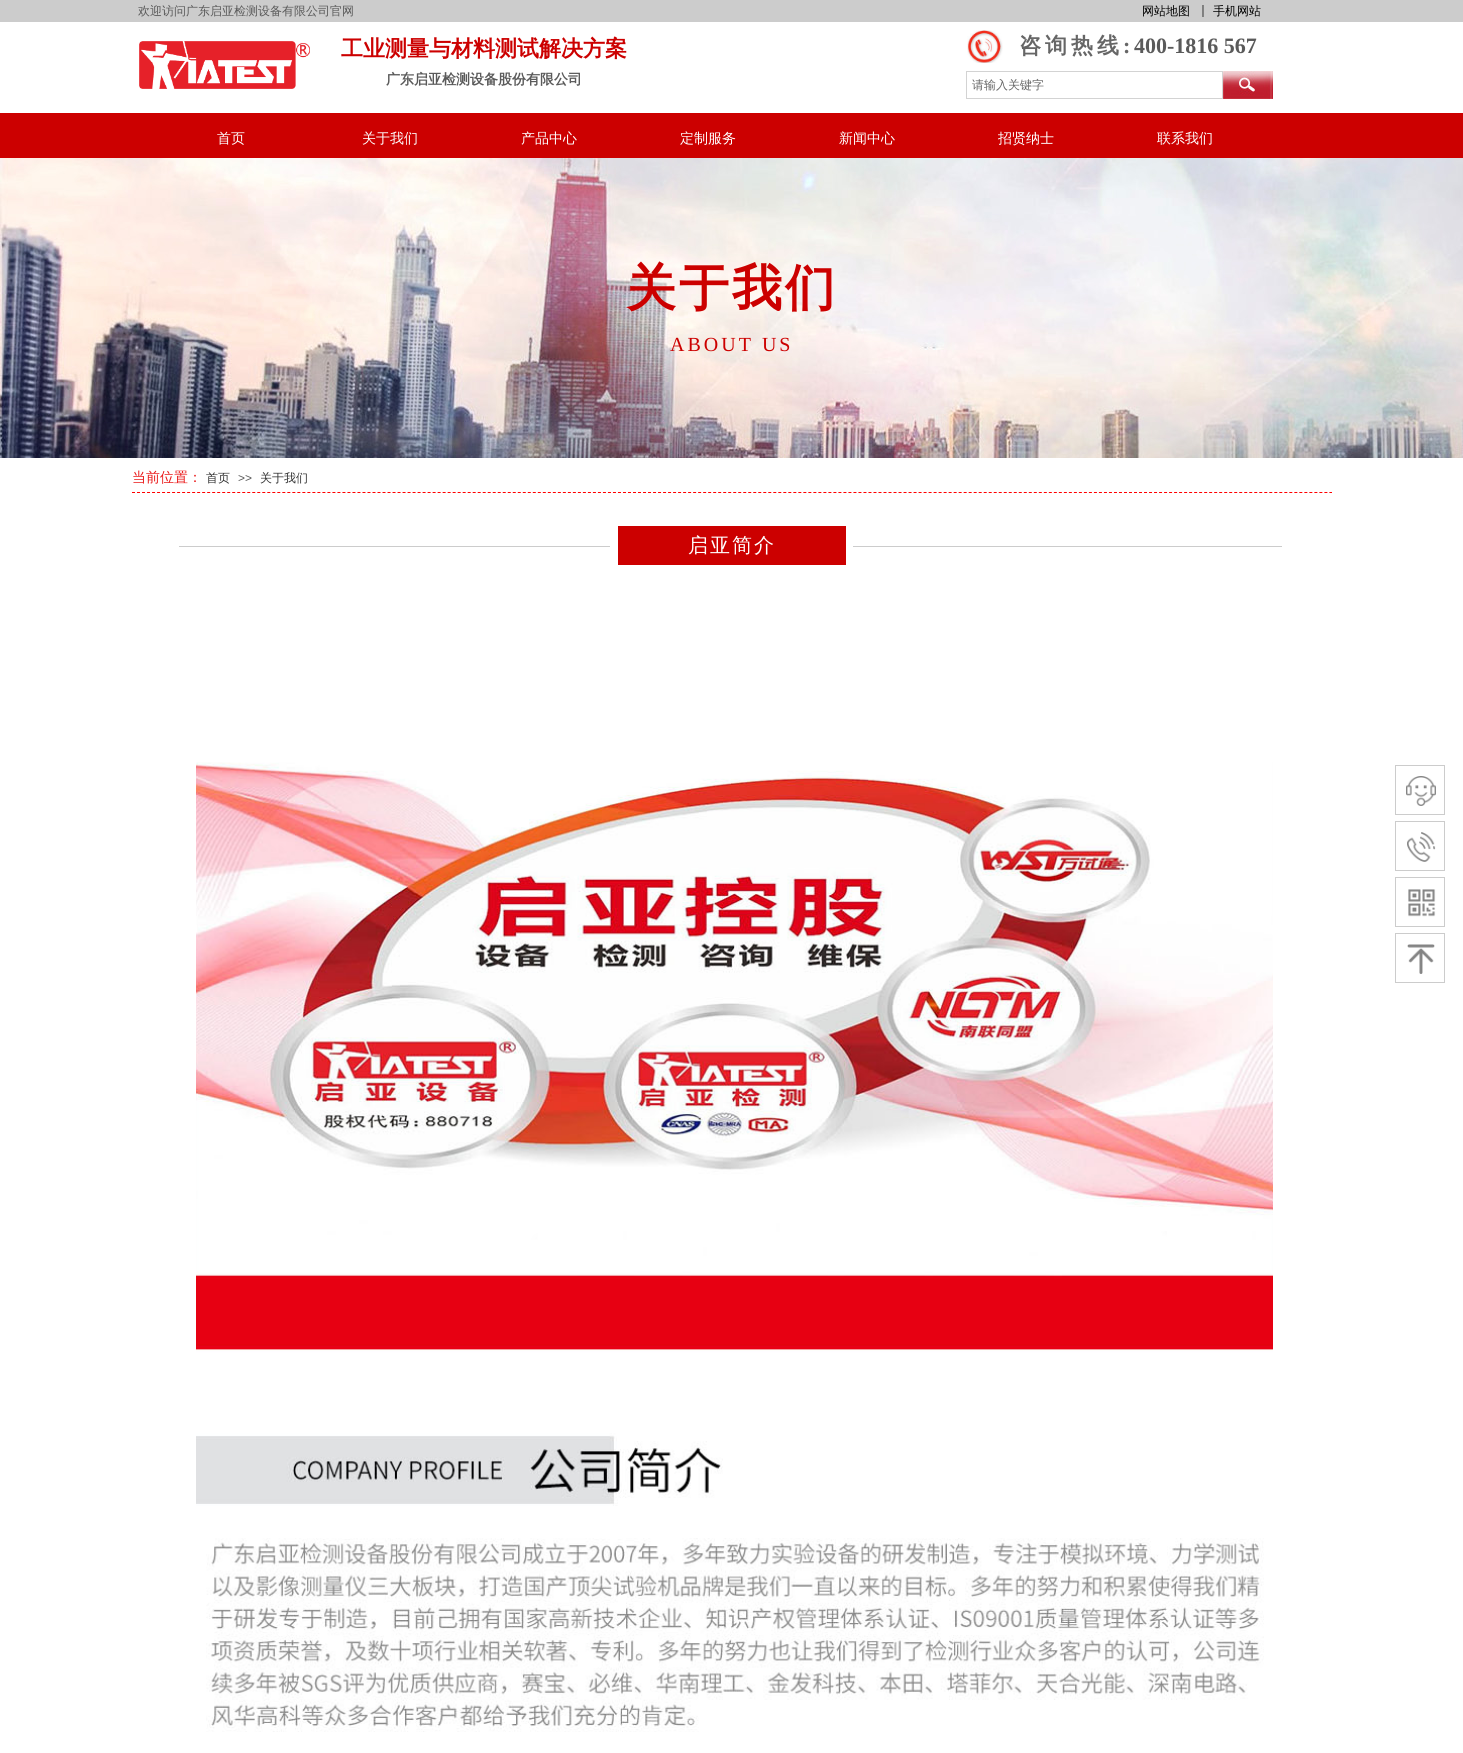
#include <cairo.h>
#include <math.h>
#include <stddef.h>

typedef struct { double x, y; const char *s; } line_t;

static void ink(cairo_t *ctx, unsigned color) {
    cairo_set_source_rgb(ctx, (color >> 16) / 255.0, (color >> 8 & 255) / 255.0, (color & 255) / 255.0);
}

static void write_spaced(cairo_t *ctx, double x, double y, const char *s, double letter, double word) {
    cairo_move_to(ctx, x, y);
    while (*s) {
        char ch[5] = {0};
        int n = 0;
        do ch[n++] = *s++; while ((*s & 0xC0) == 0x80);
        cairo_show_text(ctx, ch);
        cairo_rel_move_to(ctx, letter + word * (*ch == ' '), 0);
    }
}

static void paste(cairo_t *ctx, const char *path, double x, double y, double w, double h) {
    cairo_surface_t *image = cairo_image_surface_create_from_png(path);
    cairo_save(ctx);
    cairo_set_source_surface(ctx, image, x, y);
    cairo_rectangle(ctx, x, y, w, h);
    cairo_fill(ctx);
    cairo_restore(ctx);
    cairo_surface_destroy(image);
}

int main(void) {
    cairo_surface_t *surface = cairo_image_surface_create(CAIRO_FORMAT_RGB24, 1463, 1753);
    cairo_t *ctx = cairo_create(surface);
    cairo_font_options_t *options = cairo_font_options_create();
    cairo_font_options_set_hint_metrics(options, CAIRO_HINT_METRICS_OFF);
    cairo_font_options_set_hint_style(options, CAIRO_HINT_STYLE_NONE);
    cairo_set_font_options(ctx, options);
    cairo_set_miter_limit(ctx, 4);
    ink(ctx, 0xFFFFFF);
    cairo_paint(ctx);
    ink(ctx, 0xCCCCCC);
    cairo_rectangle(ctx, 0, 0, 1463, 22);
    cairo_fill(ctx);
    cairo_select_font_face(ctx, "WenQuanYi Zen Hei Medium", CAIRO_FONT_SLANT_NORMAL, CAIRO_FONT_WEIGHT_NORMAL);
    cairo_set_font_size(ctx, 12);
    ink(ctx, 0x5A5A5A);
    cairo_move_to(ctx, 138, 15);
    cairo_show_text(ctx, "欢迎访问广东启亚检测设备有限公司官网");
    ink(ctx, 0x000000);
    {
        static const line_t items[] = {
            {1142, 15, "网站地图"},
            {1197, 14, "｜"},
            {1213, 15, "手机网站"},
        };
        for (size_t i = 0; i < sizeof items / sizeof *items; i++) {
            cairo_move_to(ctx, items[i].x, items[i].y);
            cairo_show_text(ctx, items[i].s);
        }
    }
    paste(ctx, "media/1.png", 139, 41, 171, 48);
    cairo_select_font_face(ctx, "WenQuanYi Zen Hei", CAIRO_FONT_SLANT_NORMAL, CAIRO_FONT_WEIGHT_BOLD);
    cairo_set_font_size(ctx, 22);
    ink(ctx, 0xCC0000);
    cairo_move_to(ctx, 341, 56);
    cairo_show_text(ctx, "工业测量与材料测试解决方案");
    paste(ctx, "media/2.png", 967, 30, 36, 33);
    ink(ctx, 0x666666);
    write_spaced(ctx, 1019, 53, "咨询热线", 4, 0);
    cairo_select_font_face(ctx, "Liberation Serif", CAIRO_FONT_SLANT_NORMAL, CAIRO_FONT_WEIGHT_BOLD);
    write_spaced(ctx, 1123, 53, ":", 4, 0);
    ink(ctx, 0x5A5A5A);
    cairo_move_to(ctx, 1134, 53);
    cairo_show_text(ctx, "400-1816 567");
    cairo_select_font_face(ctx, "WenQuanYi Zen Hei", CAIRO_FONT_SLANT_NORMAL, CAIRO_FONT_WEIGHT_BOLD);
    cairo_set_font_size(ctx, 14);
    cairo_move_to(ctx, 386, 84);
    cairo_show_text(ctx, "广东启亚检测设备股份有限公司");
    cairo_rectangle(ctx, 966.5, 71.5, 256, 27);
    ink(ctx, 0xD3D3D3);
    cairo_set_line_width(ctx, 1);
    cairo_stroke(ctx);
    cairo_select_font_face(ctx, "WenQuanYi Zen Hei Medium", CAIRO_FONT_SLANT_NORMAL, CAIRO_FONT_WEIGHT_NORMAL);
    cairo_set_font_size(ctx, 12);
    ink(ctx, 0x666666);
    cairo_move_to(ctx, 972, 89);
    cairo_show_text(ctx, "请输入关键字");
    paste(ctx, "media/3.png", 1223, 71, 50, 28);
    ink(ctx, 0xCC0000);
    cairo_rectangle(ctx, 0, 113, 1463, 45);
    cairo_fill(ctx);
    cairo_set_font_size(ctx, 14);
    ink(ctx, 0xFFFFFF);
    {
        static const line_t items[] = {
            {217, 143, "首页"},
            {362, 143, "关于我们"},
            {521, 143, "产品中心"},
            {680, 143, "定制服务"},
            {839, 143, "新闻中心"},
            {998, 143, "招贤纳士"},
            {1157, 143, "联系我们"},
        };
        for (size_t i = 0; i < sizeof items / sizeof *items; i++) {
            cairo_move_to(ctx, items[i].x, items[i].y);
            cairo_show_text(ctx, items[i].s);
        }
    }
    paste(ctx, "media/4.png", 0, 158, 1463, 300);
    cairo_select_font_face(ctx, "WenQuanYi Zen Hei", CAIRO_FONT_SLANT_NORMAL, CAIRO_FONT_WEIGHT_BOLD);
    cairo_set_font_size(ctx, 50);
    ink(ctx, 0xCC0000);
    write_spaced(ctx, 626, 305, "关于我们", 3, 0);
    cairo_select_font_face(ctx, "Liberation Serif", CAIRO_FONT_SLANT_NORMAL, CAIRO_FONT_WEIGHT_NORMAL);
    cairo_set_font_size(ctx, 20);
    write_spaced(ctx, 670, 351, "ABOUT US", 3, 0);
    cairo_select_font_face(ctx, "WenQuanYi Zen Hei Medium", CAIRO_FONT_SLANT_NORMAL, CAIRO_FONT_WEIGHT_NORMAL);
    cairo_set_font_size(ctx, 14);
    ink(ctx, 0xEA1919);
    cairo_move_to(ctx, 132, 482);
    cairo_show_text(ctx, "当前位置：");
    cairo_set_font_size(ctx, 12);
    ink(ctx, 0x333333);
    cairo_move_to(ctx, 206, 482);
    cairo_show_text(ctx, "首页");
    cairo_select_font_face(ctx, "Liberation Sans", CAIRO_FONT_SLANT_NORMAL, CAIRO_FONT_WEIGHT_NORMAL);
    ink(ctx, 0x5A5A5A);
    cairo_move_to(ctx, 238, 482);
    cairo_show_text(ctx, ">>");
    cairo_select_font_face(ctx, "WenQuanYi Zen Hei Medium", CAIRO_FONT_SLANT_NORMAL, CAIRO_FONT_WEIGHT_NORMAL);
    ink(ctx, 0x333333);
    cairo_move_to(ctx, 260, 482);
    cairo_show_text(ctx, "关于我们");
    cairo_new_path(ctx);
    cairo_move_to(ctx, 132, 492.5);
    cairo_line_to(ctx, 1332, 492.5);
    ink(ctx, 0xFF0000);
    cairo_set_dash(ctx, (double[]){3, 2.01}, 2, 0);
    cairo_stroke(ctx);
    ink(ctx, 0xCCCCCC);
    cairo_rectangle(ctx, 179, 546, 431, 1);
    cairo_fill(ctx);
    ink(ctx, 0xCC0000);
    cairo_rectangle(ctx, 618, 526, 228, 39);
    cairo_fill(ctx);
    cairo_set_font_size(ctx, 20);
    ink(ctx, 0xFFFFFF);
    write_spaced(ctx, 688, 552, "启亚简介", 2, 0);
    ink(ctx, 0xCCCCCC);
    cairo_rectangle(ctx, 853, 546, 429, 1);
    cairo_fill(ctx);
    paste(ctx, "media/5.png", 196, 762, 1077, 970);
    cairo_rectangle(ctx, 1395.5, 765.5, 49, 49);
    cairo_set_dash(ctx, NULL, 0, 0);
    cairo_stroke(ctx);
    paste(ctx, "media/6.png", 1406, 776, 30, 30);
    cairo_rectangle(ctx, 1395.5, 821.5, 49, 49);
    cairo_stroke(ctx);
    paste(ctx, "media/7.png", 1407, 832, 29, 30);
    cairo_rectangle(ctx, 1395.5, 877.5, 49, 49);
    cairo_stroke(ctx);
    paste(ctx, "media/8.png", 1408, 889, 28, 28);
    cairo_rectangle(ctx, 1395.5, 933.5, 49, 49);
    cairo_stroke(ctx);
    paste(ctx, "media/9.png", 1407, 944, 28, 30);
    cairo_surface_write_to_png(surface, "image.png");
    cairo_font_options_destroy(options);
    cairo_destroy(ctx);
    cairo_surface_destroy(surface);
    return 0;
}
